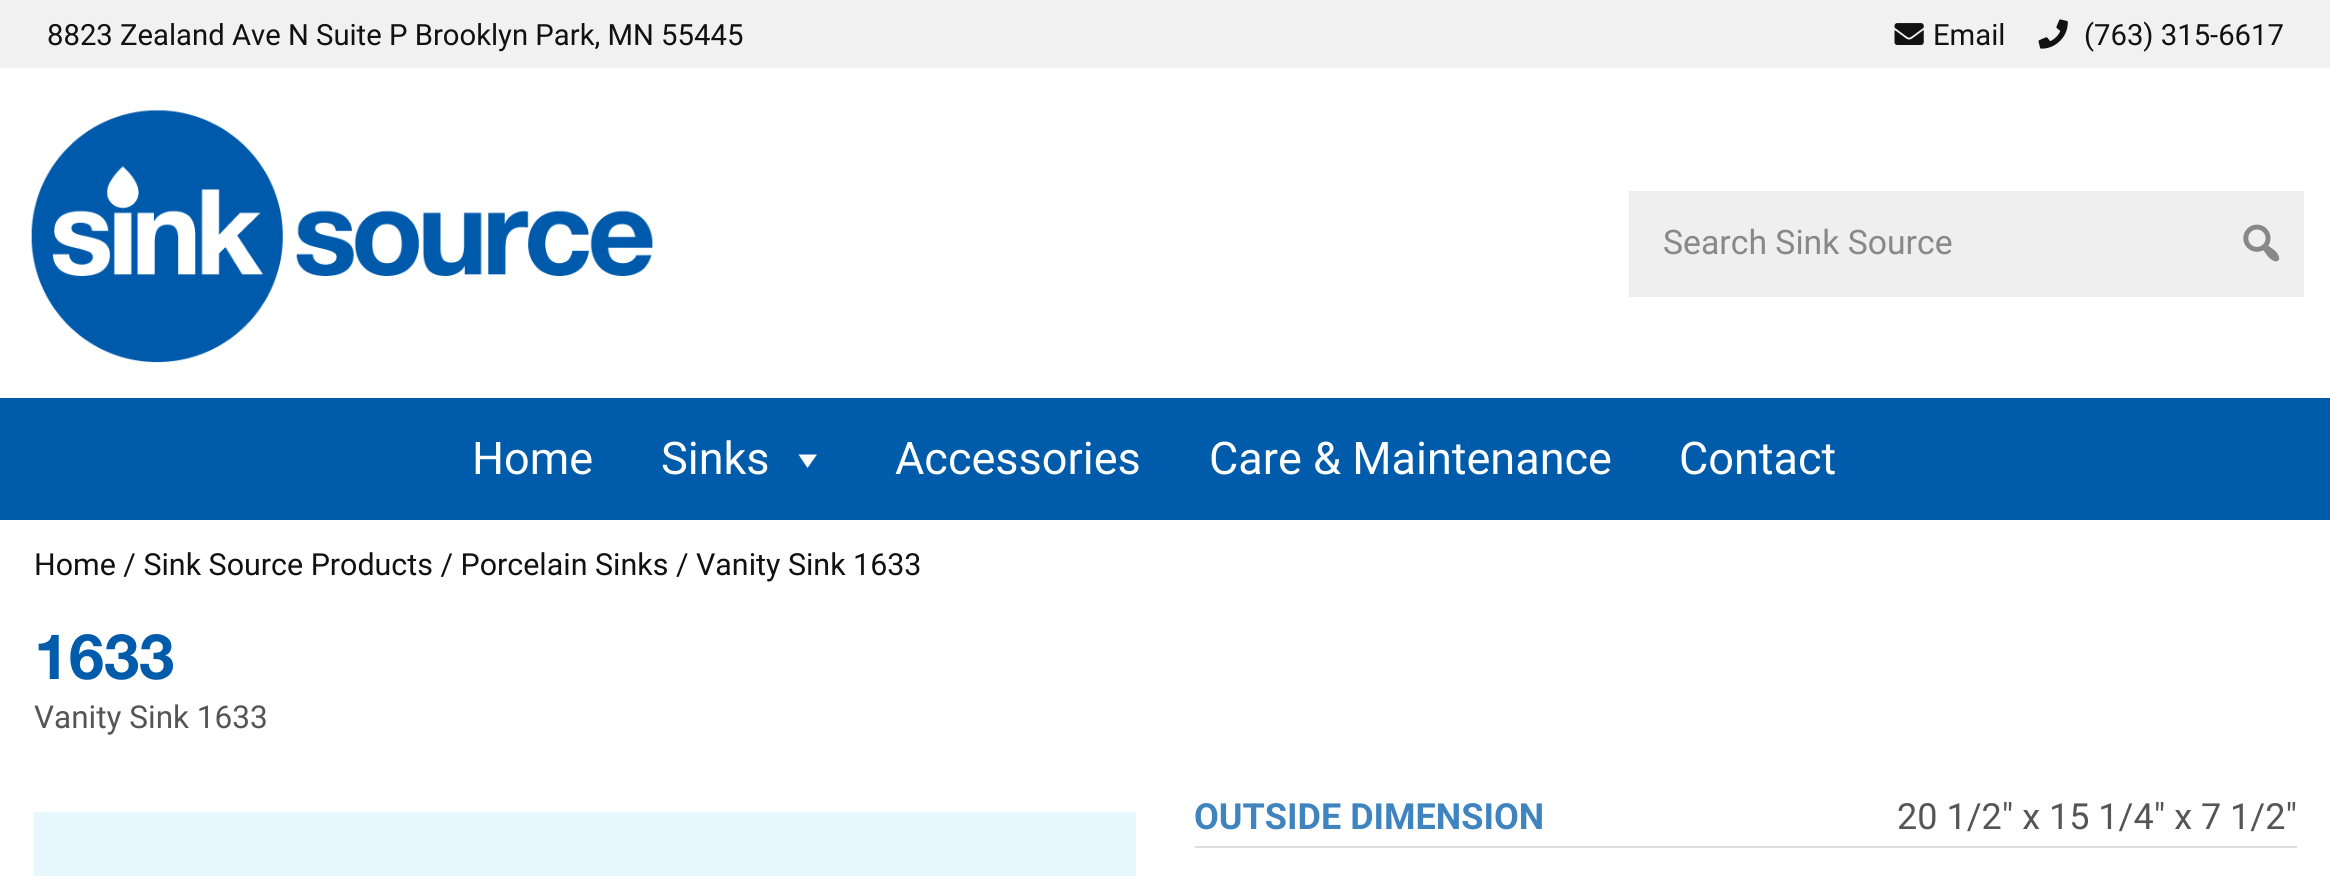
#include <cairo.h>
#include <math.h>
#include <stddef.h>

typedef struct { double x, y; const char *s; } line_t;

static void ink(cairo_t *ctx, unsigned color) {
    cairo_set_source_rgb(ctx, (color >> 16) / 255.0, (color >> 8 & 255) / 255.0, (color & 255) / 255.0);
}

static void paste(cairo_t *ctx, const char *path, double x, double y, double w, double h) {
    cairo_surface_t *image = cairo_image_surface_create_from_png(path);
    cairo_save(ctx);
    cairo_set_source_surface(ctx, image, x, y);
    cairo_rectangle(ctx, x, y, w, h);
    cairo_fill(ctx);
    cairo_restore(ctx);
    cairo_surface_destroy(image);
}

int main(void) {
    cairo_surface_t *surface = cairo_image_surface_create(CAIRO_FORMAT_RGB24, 2330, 876);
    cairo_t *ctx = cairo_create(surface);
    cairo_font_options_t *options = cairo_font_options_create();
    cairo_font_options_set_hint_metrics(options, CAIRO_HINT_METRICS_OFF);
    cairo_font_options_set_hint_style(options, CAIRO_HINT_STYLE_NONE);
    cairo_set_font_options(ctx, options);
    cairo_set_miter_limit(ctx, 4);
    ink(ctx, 0xFFFFFF);
    cairo_paint(ctx);
    ink(ctx, 0xF1F1F1);
    cairo_rectangle(ctx, 0, 0, 2330, 68);
    cairo_fill(ctx);
    cairo_select_font_face(ctx, "Roboto", CAIRO_FONT_SLANT_NORMAL, CAIRO_FONT_WEIGHT_NORMAL);
    cairo_set_font_size(ctx, 29.25);
    ink(ctx, 0x111111);
    cairo_move_to(ctx, 47, 45);
    cairo_show_text(ctx, "8823 Zealand Ave N Suite P Brooklyn Park, MN 55445");
    paste(ctx, "media/1.png", 1894, 23, 30, 22);
    cairo_move_to(ctx, 1933, 45);
    cairo_show_text(ctx, "Email");
    paste(ctx, "media/2.png", 2038, 19, 30, 30);
    cairo_move_to(ctx, 2084, 45);
    cairo_show_text(ctx, "(763) 315-6617");
    paste(ctx, "media/3.png", 31, 110, 622, 253);
    ink(ctx, 0xEFEFEF);
    cairo_rectangle(ctx, 1629, 191, 675, 106);
    cairo_fill(ctx);
    cairo_set_font_size(ctx, 33.75);
    ink(ctx, 0x888888);
    cairo_move_to(ctx, 1663, 254);
    cairo_show_text(ctx, "Search Sink Source");
    paste(ctx, "media/4.png", 2243, 224, 37, 38);
    ink(ctx, 0x005BAA);
    cairo_rectangle(ctx, 0, 398, 2330, 122);
    cairo_fill(ctx);
    cairo_set_font_size(ctx, 45);
    ink(ctx, 0xFFFFFF);
    cairo_move_to(ctx, 472, 474);
    cairo_show_text(ctx, "Home");
    cairo_move_to(ctx, 661, 474);
    cairo_show_text(ctx, "Sinks");
    cairo_new_path(ctx);
    cairo_move_to(ctx, 817, 454.5);
    cairo_line_to(ctx, 807.5, 468);
    cairo_line_to(ctx, 798.5, 454.5);
    cairo_close_path(ctx);
    cairo_fill(ctx);
    {
        static const line_t items[] = {
            {895, 474, "Accessories"},
            {1209, 474, "Care & Maintenance"},
            {1679, 474, "Contact"},
        };
        for (size_t i = 0; i < sizeof items / sizeof *items; i++) {
            cairo_move_to(ctx, items[i].x, items[i].y);
            cairo_show_text(ctx, items[i].s);
        }
    }
    cairo_set_font_size(ctx, 30.4);
    ink(ctx, 0x111111);
    cairo_move_to(ctx, 34, 575);
    cairo_show_text(ctx, "Home / Sink Source Products / Porcelain Sinks / Vanity Sink 1633");
    cairo_select_font_face(ctx, "Helvetica Neue", CAIRO_FONT_SLANT_NORMAL, CAIRO_FONT_WEIGHT_BOLD);
    cairo_set_font_size(ctx, 63);
    ink(ctx, 0x005BAA);
    cairo_move_to(ctx, 34, 679);
    cairo_show_text(ctx, "1633");
    cairo_select_font_face(ctx, "Roboto", CAIRO_FONT_SLANT_NORMAL, CAIRO_FONT_WEIGHT_NORMAL);
    cairo_set_font_size(ctx, 31.5);
    ink(ctx, 0x555555);
    cairo_move_to(ctx, 34, 728);
    cairo_show_text(ctx, "Vanity Sink 1633");
    ink(ctx, 0xE6F7FD);
    cairo_rectangle(ctx, 34, 812, 1102, 64);
    cairo_fill(ctx);
    ink(ctx, 0xDDDDDD);
    cairo_rectangle(ctx, 1195, 846, 1102, 2);
    cairo_fill(ctx);
    cairo_select_font_face(ctx, "Roboto", CAIRO_FONT_SLANT_NORMAL, CAIRO_FONT_WEIGHT_BOLD);
    cairo_set_font_size(ctx, 36);
    ink(ctx, 0x4084BF);
    cairo_move_to(ctx, 1194, 829);
    cairo_show_text(ctx, "OUTSIDE DIMENSION");
    cairo_select_font_face(ctx, "Roboto", CAIRO_FONT_SLANT_NORMAL, CAIRO_FONT_WEIGHT_NORMAL);
    ink(ctx, 0x555555);
    cairo_move_to(ctx, 1897, 829);
    cairo_show_text(ctx, "20 1/2\" x 15 1/4\" x 7 1/2\"");
    ink(ctx, 0xFFFFFF);
    cairo_new_path(ctx);
    cairo_move_to(ctx, 2038.5, 785);
    cairo_line_to(ctx, 2056.5, 802.5);
    cairo_line_to(ctx, 2051, 808);
    cairo_line_to(ctx, 2038.5, 795.5);
    cairo_line_to(ctx, 2026, 808);
    cairo_line_to(ctx, 2020.5, 802.5);
    cairo_close_path(ctx);
    cairo_fill(ctx);
    cairo_surface_write_to_png(surface, "image.png");
    cairo_font_options_destroy(options);
    cairo_destroy(ctx);
    cairo_surface_destroy(surface);
    return 0;
}
